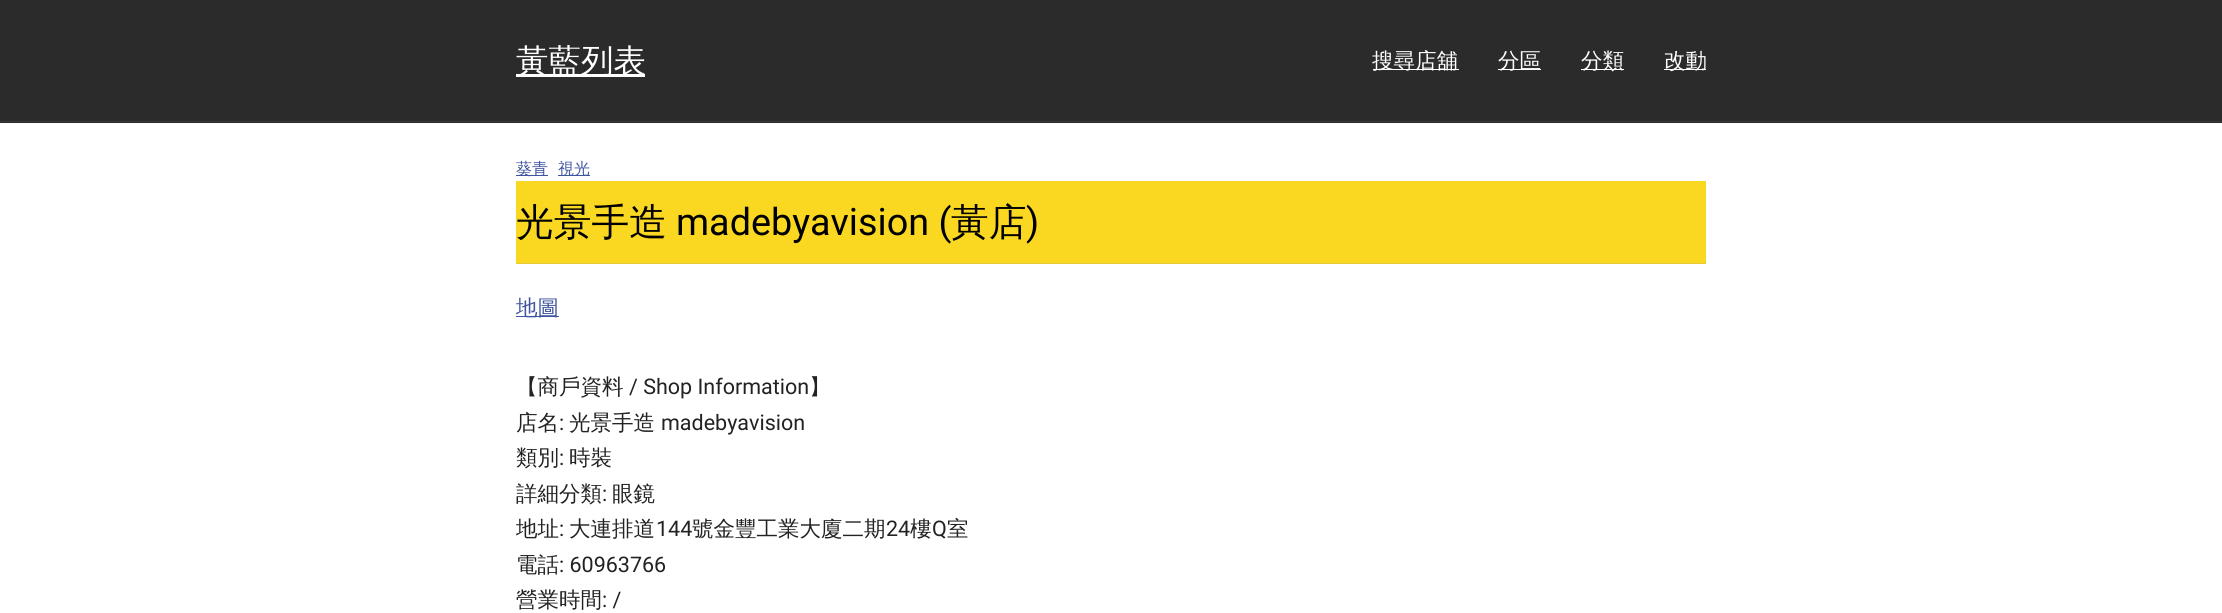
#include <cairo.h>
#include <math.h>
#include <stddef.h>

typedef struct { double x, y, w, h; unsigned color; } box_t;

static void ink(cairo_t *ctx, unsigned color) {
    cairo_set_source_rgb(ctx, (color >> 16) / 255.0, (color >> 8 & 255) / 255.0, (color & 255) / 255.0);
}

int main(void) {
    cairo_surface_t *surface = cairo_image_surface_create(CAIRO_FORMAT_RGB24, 2222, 613);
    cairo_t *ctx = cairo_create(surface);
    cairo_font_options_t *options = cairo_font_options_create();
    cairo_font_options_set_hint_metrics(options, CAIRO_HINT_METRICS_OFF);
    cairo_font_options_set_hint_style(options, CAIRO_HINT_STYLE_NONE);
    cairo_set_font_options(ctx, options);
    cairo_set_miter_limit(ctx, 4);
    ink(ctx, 0xFFFFFF);
    cairo_paint(ctx);
    {
        static const box_t items[] = {
            {0, 0, 2222, 123, 0x2B2B2B},
            {0, 121, 2222, 1, 0x393939},
            {516, 74, 129, 3, 0xFFFFFF},
        };
        for (size_t i = 0; i < sizeof items / sizeof *items; i++) {
            ink(ctx, items[i].color);
            cairo_rectangle(ctx, items[i].x, items[i].y, items[i].w, items[i].h);
            cairo_fill(ctx);
        }
    }
    cairo_select_font_face(ctx, "WenQuanYi Zen Hei Medium", CAIRO_FONT_SLANT_NORMAL, CAIRO_FONT_WEIGHT_NORMAL);
    cairo_set_font_size(ctx, 32.5);
    cairo_move_to(ctx, 516, 72);
    cairo_show_text(ctx, "黃藍列表");
    cairo_rectangle(ctx, 1373, 69, 86, 1);
    cairo_fill(ctx);
    cairo_set_font_size(ctx, 21.5);
    cairo_move_to(ctx, 1372, 68);
    cairo_show_text(ctx, "搜尋店舖");
    cairo_rectangle(ctx, 1498, 69, 43, 1);
    cairo_fill(ctx);
    cairo_move_to(ctx, 1498, 68);
    cairo_show_text(ctx, "分區");
    cairo_rectangle(ctx, 1581, 69, 43, 1);
    cairo_fill(ctx);
    cairo_move_to(ctx, 1581, 68);
    cairo_show_text(ctx, "分類");
    cairo_rectangle(ctx, 1664, 69, 42, 1);
    cairo_fill(ctx);
    cairo_move_to(ctx, 1664, 68);
    cairo_show_text(ctx, "改動");
    ink(ctx, 0x3F549E);
    cairo_rectangle(ctx, 516, 175, 32, 1);
    cairo_fill(ctx);
    cairo_set_font_size(ctx, 16);
    cairo_move_to(ctx, 516, 174);
    cairo_show_text(ctx, "葵青");
    cairo_rectangle(ctx, 558, 175, 32, 1);
    cairo_fill(ctx);
    cairo_move_to(ctx, 558, 174);
    cairo_show_text(ctx, "視光");
    ink(ctx, 0xFAD821);
    cairo_rectangle(ctx, 516, 181, 1190, 82);
    cairo_fill(ctx);
    ink(ctx, 0xE5CA39);
    cairo_rectangle(ctx, 516, 263, 1190, 1);
    cairo_fill(ctx);
    cairo_set_font_size(ctx, 37.75);
    ink(ctx, 0x000000);
    cairo_move_to(ctx, 516, 235);
    cairo_show_text(ctx, "光景手造");
    cairo_select_font_face(ctx, "Roboto", CAIRO_FONT_SLANT_NORMAL, CAIRO_FONT_WEIGHT_NORMAL);
    cairo_move_to(ctx, 676, 235);
    cairo_show_text(ctx, "madebyavision (");
    cairo_select_font_face(ctx, "WenQuanYi Zen Hei Medium", CAIRO_FONT_SLANT_NORMAL, CAIRO_FONT_WEIGHT_NORMAL);
    cairo_move_to(ctx, 951, 235);
    cairo_show_text(ctx, "黃店");
    cairo_select_font_face(ctx, "Roboto", CAIRO_FONT_SLANT_NORMAL, CAIRO_FONT_WEIGHT_NORMAL);
    cairo_move_to(ctx, 1026, 235);
    cairo_show_text(ctx, ")");
    ink(ctx, 0x3F549E);
    cairo_rectangle(ctx, 516, 316, 43, 1);
    cairo_fill(ctx);
    cairo_select_font_face(ctx, "WenQuanYi Zen Hei Medium", CAIRO_FONT_SLANT_NORMAL, CAIRO_FONT_WEIGHT_NORMAL);
    cairo_set_font_size(ctx, 21.5);
    cairo_move_to(ctx, 516, 315);
    cairo_show_text(ctx, "地圖");
    ink(ctx, 0x222222);
    cairo_move_to(ctx, 516, 394);
    cairo_show_text(ctx, "【商戶資料");
    cairo_select_font_face(ctx, "Roboto", CAIRO_FONT_SLANT_NORMAL, CAIRO_FONT_WEIGHT_NORMAL);
    cairo_move_to(ctx, 629, 394);
    cairo_show_text(ctx, "/ Shop Information");
    cairo_select_font_face(ctx, "WenQuanYi Zen Hei Medium", CAIRO_FONT_SLANT_NORMAL, CAIRO_FONT_WEIGHT_NORMAL);
    cairo_move_to(ctx, 809, 394);
    cairo_show_text(ctx, "】");
    cairo_move_to(ctx, 516, 430);
    cairo_show_text(ctx, "店名");
    cairo_select_font_face(ctx, "Roboto", CAIRO_FONT_SLANT_NORMAL, CAIRO_FONT_WEIGHT_NORMAL);
    cairo_move_to(ctx, 559, 430);
    cairo_show_text(ctx, ":");
    cairo_select_font_face(ctx, "WenQuanYi Zen Hei Medium", CAIRO_FONT_SLANT_NORMAL, CAIRO_FONT_WEIGHT_NORMAL);
    cairo_move_to(ctx, 569, 430);
    cairo_show_text(ctx, "光景手造");
    cairo_select_font_face(ctx, "Roboto", CAIRO_FONT_SLANT_NORMAL, CAIRO_FONT_WEIGHT_NORMAL);
    cairo_move_to(ctx, 661, 430);
    cairo_show_text(ctx, "madebyavision");
    cairo_select_font_face(ctx, "WenQuanYi Zen Hei Medium", CAIRO_FONT_SLANT_NORMAL, CAIRO_FONT_WEIGHT_NORMAL);
    cairo_move_to(ctx, 516, 465);
    cairo_show_text(ctx, "類別");
    cairo_select_font_face(ctx, "Roboto", CAIRO_FONT_SLANT_NORMAL, CAIRO_FONT_WEIGHT_NORMAL);
    cairo_move_to(ctx, 559, 465);
    cairo_show_text(ctx, ":");
    cairo_select_font_face(ctx, "WenQuanYi Zen Hei Medium", CAIRO_FONT_SLANT_NORMAL, CAIRO_FONT_WEIGHT_NORMAL);
    cairo_move_to(ctx, 569, 465);
    cairo_show_text(ctx, "時裝");
    cairo_move_to(ctx, 516, 501);
    cairo_show_text(ctx, "詳細分類");
    cairo_select_font_face(ctx, "Roboto", CAIRO_FONT_SLANT_NORMAL, CAIRO_FONT_WEIGHT_NORMAL);
    cairo_move_to(ctx, 602, 501);
    cairo_show_text(ctx, ":");
    cairo_select_font_face(ctx, "WenQuanYi Zen Hei Medium", CAIRO_FONT_SLANT_NORMAL, CAIRO_FONT_WEIGHT_NORMAL);
    cairo_move_to(ctx, 612, 501);
    cairo_show_text(ctx, "眼鏡");
    cairo_move_to(ctx, 516, 536);
    cairo_show_text(ctx, "地址");
    cairo_select_font_face(ctx, "Roboto", CAIRO_FONT_SLANT_NORMAL, CAIRO_FONT_WEIGHT_NORMAL);
    cairo_move_to(ctx, 559, 536);
    cairo_show_text(ctx, ":");
    cairo_select_font_face(ctx, "WenQuanYi Zen Hei Medium", CAIRO_FONT_SLANT_NORMAL, CAIRO_FONT_WEIGHT_NORMAL);
    cairo_move_to(ctx, 569, 536);
    cairo_show_text(ctx, "大連排道");
    cairo_select_font_face(ctx, "Roboto", CAIRO_FONT_SLANT_NORMAL, CAIRO_FONT_WEIGHT_NORMAL);
    cairo_move_to(ctx, 656, 536);
    cairo_show_text(ctx, "144");
    cairo_select_font_face(ctx, "WenQuanYi Zen Hei Medium", CAIRO_FONT_SLANT_NORMAL, CAIRO_FONT_WEIGHT_NORMAL);
    cairo_move_to(ctx, 692, 536);
    cairo_show_text(ctx, "號金豐工業大廈二期");
    cairo_select_font_face(ctx, "Roboto", CAIRO_FONT_SLANT_NORMAL, CAIRO_FONT_WEIGHT_NORMAL);
    cairo_move_to(ctx, 886, 536);
    cairo_show_text(ctx, "24");
    cairo_select_font_face(ctx, "WenQuanYi Zen Hei Medium", CAIRO_FONT_SLANT_NORMAL, CAIRO_FONT_WEIGHT_NORMAL);
    cairo_move_to(ctx, 910, 536);
    cairo_show_text(ctx, "樓");
    cairo_select_font_face(ctx, "Roboto", CAIRO_FONT_SLANT_NORMAL, CAIRO_FONT_WEIGHT_NORMAL);
    cairo_move_to(ctx, 932, 536);
    cairo_show_text(ctx, "Q");
    cairo_select_font_face(ctx, "WenQuanYi Zen Hei Medium", CAIRO_FONT_SLANT_NORMAL, CAIRO_FONT_WEIGHT_NORMAL);
    cairo_move_to(ctx, 947, 536);
    cairo_show_text(ctx, "室");
    cairo_move_to(ctx, 516, 572);
    cairo_show_text(ctx, "電話");
    cairo_select_font_face(ctx, "Roboto", CAIRO_FONT_SLANT_NORMAL, CAIRO_FONT_WEIGHT_NORMAL);
    cairo_move_to(ctx, 559, 572);
    cairo_show_text(ctx, ": 60963766");
    cairo_select_font_face(ctx, "WenQuanYi Zen Hei Medium", CAIRO_FONT_SLANT_NORMAL, CAIRO_FONT_WEIGHT_NORMAL);
    cairo_move_to(ctx, 516, 607);
    cairo_show_text(ctx, "營業時間");
    cairo_select_font_face(ctx, "Roboto", CAIRO_FONT_SLANT_NORMAL, CAIRO_FONT_WEIGHT_NORMAL);
    cairo_move_to(ctx, 602, 607);
    cairo_show_text(ctx, ": /");
    cairo_surface_write_to_png(surface, "image.png");
    cairo_font_options_destroy(options);
    cairo_destroy(ctx);
    cairo_surface_destroy(surface);
    return 0;
}
